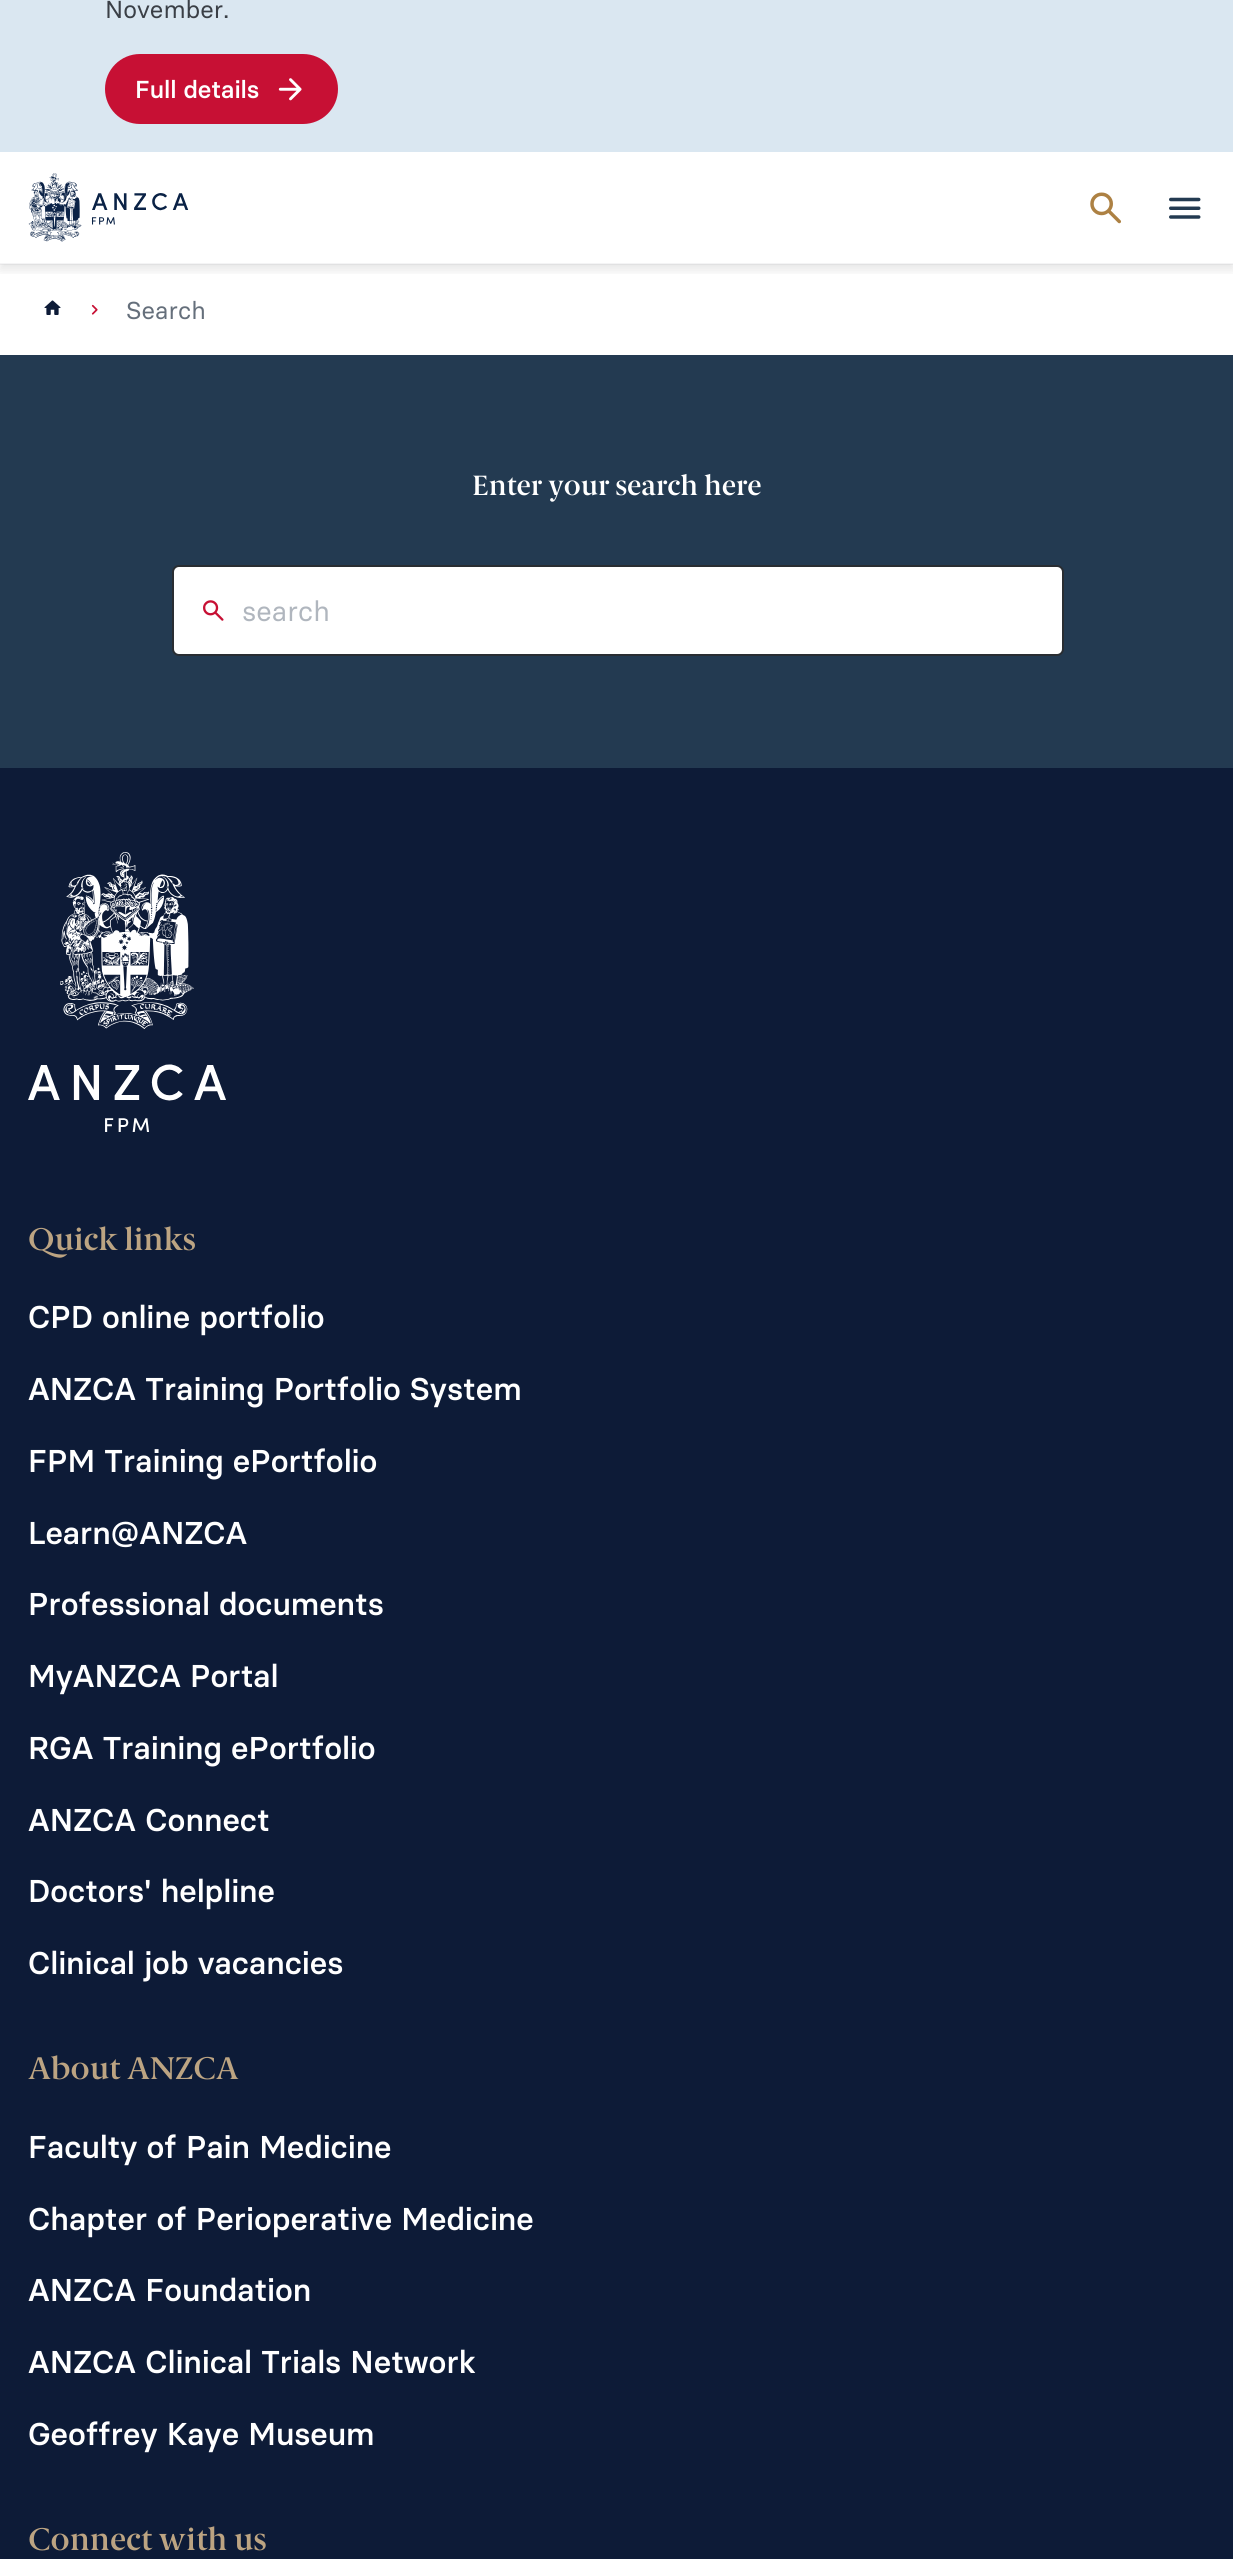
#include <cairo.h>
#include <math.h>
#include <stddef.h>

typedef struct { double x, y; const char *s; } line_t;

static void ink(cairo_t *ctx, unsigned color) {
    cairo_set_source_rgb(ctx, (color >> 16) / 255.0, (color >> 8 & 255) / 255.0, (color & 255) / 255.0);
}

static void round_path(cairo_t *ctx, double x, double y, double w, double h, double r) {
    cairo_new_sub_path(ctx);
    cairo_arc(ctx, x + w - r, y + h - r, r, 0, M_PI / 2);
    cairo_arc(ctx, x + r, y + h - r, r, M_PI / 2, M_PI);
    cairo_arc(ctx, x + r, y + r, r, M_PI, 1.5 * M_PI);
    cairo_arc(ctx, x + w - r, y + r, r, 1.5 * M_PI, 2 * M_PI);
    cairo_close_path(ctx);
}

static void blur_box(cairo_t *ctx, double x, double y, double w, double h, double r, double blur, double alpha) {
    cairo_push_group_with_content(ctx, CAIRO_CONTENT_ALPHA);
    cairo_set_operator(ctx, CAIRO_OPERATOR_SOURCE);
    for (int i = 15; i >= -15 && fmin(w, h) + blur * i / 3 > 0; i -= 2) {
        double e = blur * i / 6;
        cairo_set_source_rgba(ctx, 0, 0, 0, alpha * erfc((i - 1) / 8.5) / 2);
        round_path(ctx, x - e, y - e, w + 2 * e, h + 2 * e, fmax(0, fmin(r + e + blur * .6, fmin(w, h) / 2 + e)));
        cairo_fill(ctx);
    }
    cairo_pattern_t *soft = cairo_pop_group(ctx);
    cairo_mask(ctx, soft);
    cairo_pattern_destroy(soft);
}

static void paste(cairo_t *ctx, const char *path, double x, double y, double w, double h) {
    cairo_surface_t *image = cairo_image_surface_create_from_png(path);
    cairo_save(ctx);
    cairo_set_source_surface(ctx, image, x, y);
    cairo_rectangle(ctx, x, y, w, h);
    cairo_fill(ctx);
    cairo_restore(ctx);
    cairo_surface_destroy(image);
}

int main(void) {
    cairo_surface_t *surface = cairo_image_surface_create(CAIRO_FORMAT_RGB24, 1233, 2559);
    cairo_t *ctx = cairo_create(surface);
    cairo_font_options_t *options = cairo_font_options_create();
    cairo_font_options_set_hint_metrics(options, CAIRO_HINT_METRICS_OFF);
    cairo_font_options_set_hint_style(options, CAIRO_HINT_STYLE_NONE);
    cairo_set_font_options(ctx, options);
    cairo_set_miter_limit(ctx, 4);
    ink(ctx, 0xFFFFFF);
    cairo_paint(ctx);
    ink(ctx, 0xDAE7F1);
    cairo_rectangle(ctx, 0, 0, 1233, 152);
    cairo_fill(ctx);
    cairo_select_font_face(ctx, "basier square", CAIRO_FONT_SLANT_NORMAL, CAIRO_FONT_WEIGHT_NORMAL);
    cairo_set_font_size(ctx, 24.5);
    ink(ctx, 0x3A3F46);
    cairo_move_to(ctx, 105, 18);
    cairo_show_text(ctx, "November.");
    ink(ctx, 0xC71034);
    round_path(ctx, 105, 54, 233, 70, 35);
    cairo_fill(ctx);
    cairo_select_font_face(ctx, "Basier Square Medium", CAIRO_FONT_SLANT_NORMAL, CAIRO_FONT_WEIGHT_NORMAL);
    ink(ctx, 0xFFFFFF);
    cairo_move_to(ctx, 135, 98);
    cairo_show_text(ctx, "Full details");
    paste(ctx, "media/1.png", 278, 78, 24, 23);
    ink(ctx, 0xF4F4F5);
    cairo_rectangle(ctx, 0, 263, 1233, 2);
    cairo_fill(ctx);
    cairo_save(ctx);
    cairo_rectangle(ctx, 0, 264, 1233, 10);
    cairo_clip(ctx);
    ink(ctx, 0x0A0909);
    blur_box(ctx, 0, 158, 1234, 112, 0, 5, 0.1);
    cairo_restore(ctx);
    paste(ctx, "media/2.png", 28, 173, 161, 69);
    paste(ctx, "media/3.png", 1090, 192, 31, 32);
    paste(ctx, "media/4.png", 1169, 197, 32, 22);
    paste(ctx, "media/5.png", 44, 300, 17, 15);
    paste(ctx, "media/6.png", 91, 304, 7, 11);
    cairo_select_font_face(ctx, "basier square", CAIRO_FONT_SLANT_NORMAL, CAIRO_FONT_WEIGHT_NORMAL);
    ink(ctx, 0x656F7B);
    cairo_move_to(ctx, 126, 319);
    cairo_show_text(ctx, "Search");
    ink(ctx, 0x233A51);
    cairo_rectangle(ctx, 0, 355, 1233, 413);
    cairo_fill(ctx);
    cairo_select_font_face(ctx, "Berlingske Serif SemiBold", CAIRO_FONT_SLANT_NORMAL, CAIRO_FONT_WEIGHT_NORMAL);
    cairo_set_font_size(ctx, 28);
    ink(ctx, 0xFFFFFF);
    cairo_move_to(ctx, 472, 495);
    cairo_show_text(ctx, "Enter your search here");
    round_path(ctx, 173, 566, 890, 89, 6);
    cairo_fill_preserve(ctx);
    ink(ctx, 0x292D32);
    cairo_stroke(ctx);
    paste(ctx, "media/7.png", 203, 600, 21, 21);
    cairo_select_font_face(ctx, "basier square", CAIRO_FONT_SLANT_NORMAL, CAIRO_FONT_WEIGHT_NORMAL);
    ink(ctx, 0xB0B6BE);
    cairo_move_to(ctx, 242, 621);
    cairo_show_text(ctx, "search");
    ink(ctx, 0x0D1B37);
    cairo_rectangle(ctx, 0, 768, 1233, 1791);
    cairo_fill(ctx);
    paste(ctx, "media/8.png", 28, 852, 198, 280);
    cairo_select_font_face(ctx, "Berlingske Serif SemiBold", CAIRO_FONT_SLANT_NORMAL, CAIRO_FONT_WEIGHT_NORMAL);
    cairo_set_font_size(ctx, 31.5);
    ink(ctx, 0xBCA482);
    cairo_move_to(ctx, 28, 1250);
    cairo_show_text(ctx, "Quick links");
    cairo_select_font_face(ctx, "Basier Square Medium", CAIRO_FONT_SLANT_NORMAL, CAIRO_FONT_WEIGHT_NORMAL);
    ink(ctx, 0xFFFFFF);
    {
        static const line_t items[] = {
            {28, 1328, "CPD online portfolio"},
            {28, 1400, "ANZCA Training Portfolio System"},
            {28, 1472, "FPM Training ePortfolio"},
            {28, 1544, "Learn@ANZCA"},
            {28, 1615, "Professional documents"},
            {28, 1687, "MyANZCA Portal"},
            {28, 1759, "RGA Training ePortfolio"},
            {28, 1831, "ANZCA Connect"},
            {28, 1902, "Doctors' helpline"},
            {28, 1974, "Clinical job vacancies"},
        };
        for (size_t i = 0; i < sizeof items / sizeof *items; i++) {
            cairo_move_to(ctx, items[i].x, items[i].y);
            cairo_show_text(ctx, items[i].s);
        }
    }
    cairo_select_font_face(ctx, "Berlingske Serif SemiBold", CAIRO_FONT_SLANT_NORMAL, CAIRO_FONT_WEIGHT_NORMAL);
    ink(ctx, 0xBCA482);
    cairo_move_to(ctx, 28, 2079);
    cairo_show_text(ctx, "About ANZCA");
    cairo_select_font_face(ctx, "Basier Square Medium", CAIRO_FONT_SLANT_NORMAL, CAIRO_FONT_WEIGHT_NORMAL);
    ink(ctx, 0xFFFFFF);
    {
        static const line_t items[] = {
            {28, 2158, "Faculty of Pain Medicine"},
            {28, 2230, "Chapter of Perioperative Medicine"},
            {28, 2301, "ANZCA Foundation"},
            {28, 2373, "ANZCA Clinical Trials Network"},
            {28, 2445, "Geoffrey Kaye Museum"},
        };
        for (size_t i = 0; i < sizeof items / sizeof *items; i++) {
            cairo_move_to(ctx, items[i].x, items[i].y);
            cairo_show_text(ctx, items[i].s);
        }
    }
    cairo_select_font_face(ctx, "Berlingske Serif SemiBold", CAIRO_FONT_SLANT_NORMAL, CAIRO_FONT_WEIGHT_NORMAL);
    ink(ctx, 0xBCA482);
    cairo_move_to(ctx, 28, 2550);
    cairo_show_text(ctx, "Connect with us");
    cairo_surface_write_to_png(surface, "image.png");
    cairo_font_options_destroy(options);
    cairo_destroy(ctx);
    cairo_surface_destroy(surface);
    return 0;
}
